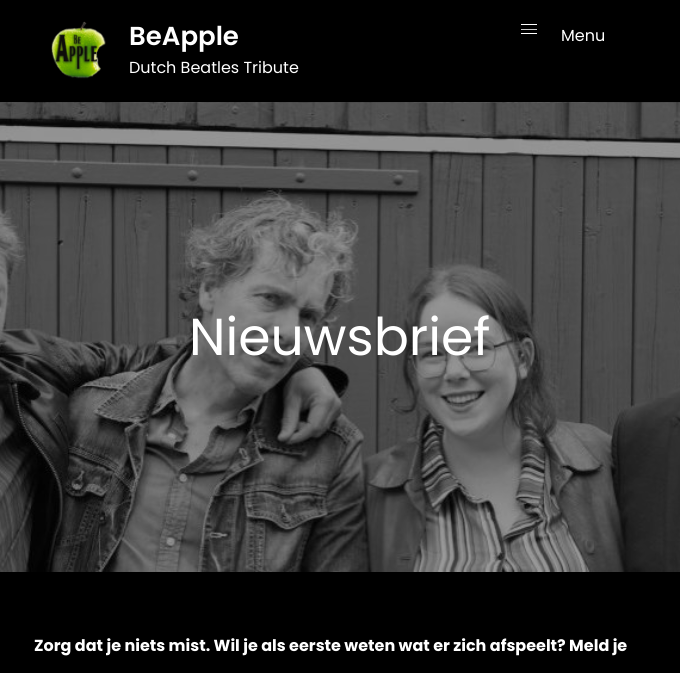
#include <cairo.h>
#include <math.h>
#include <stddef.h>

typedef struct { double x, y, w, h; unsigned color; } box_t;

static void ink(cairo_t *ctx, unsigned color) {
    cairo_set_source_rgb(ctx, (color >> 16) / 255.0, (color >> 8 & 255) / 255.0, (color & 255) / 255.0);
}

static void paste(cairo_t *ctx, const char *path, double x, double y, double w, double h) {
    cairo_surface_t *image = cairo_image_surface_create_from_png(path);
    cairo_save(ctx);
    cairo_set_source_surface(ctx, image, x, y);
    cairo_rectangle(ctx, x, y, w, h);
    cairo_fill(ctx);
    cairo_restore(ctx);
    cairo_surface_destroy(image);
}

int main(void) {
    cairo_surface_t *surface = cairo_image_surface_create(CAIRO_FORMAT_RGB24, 680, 673);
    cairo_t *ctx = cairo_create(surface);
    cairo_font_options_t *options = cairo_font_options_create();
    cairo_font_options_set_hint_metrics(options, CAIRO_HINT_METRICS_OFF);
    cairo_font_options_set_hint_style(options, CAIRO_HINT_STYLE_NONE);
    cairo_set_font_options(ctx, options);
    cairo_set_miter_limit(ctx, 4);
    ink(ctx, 0x000000);
    cairo_paint(ctx);
    paste(ctx, "media/1.png", 51, 21, 55, 58);
    cairo_select_font_face(ctx, "Poppins SemiBold", CAIRO_FONT_SLANT_NORMAL, CAIRO_FONT_WEIGHT_NORMAL);
    cairo_set_font_size(ctx, 26);
    ink(ctx, 0xFFFFFF);
    cairo_move_to(ctx, 129, 45);
    cairo_show_text(ctx, "BeApple");
    cairo_select_font_face(ctx, "Poppins", CAIRO_FONT_SLANT_NORMAL, CAIRO_FONT_WEIGHT_NORMAL);
    cairo_set_font_size(ctx, 16);
    cairo_move_to(ctx, 129, 73);
    cairo_show_text(ctx, "Dutch Beatles Tribute");
    {
        static const box_t items[] = {
            {521, 24, 16, 1, 0xFFFFFF},
            {521, 29, 16, 1, 0xCCCCCC},
            {521, 33, 16, 1, 0xFFFFFF},
        };
        for (size_t i = 0; i < sizeof items / sizeof *items; i++) {
            ink(ctx, items[i].color);
            cairo_rectangle(ctx, items[i].x, items[i].y, items[i].w, items[i].h);
            cairo_fill(ctx);
        }
    }
    cairo_move_to(ctx, 561, 41);
    cairo_show_text(ctx, "Menu");
    paste(ctx, "media/2.png", 0, 102, 680, 470);
    cairo_set_font_size(ctx, 52);
    cairo_move_to(ctx, 189, 355);
    cairo_show_text(ctx, "Nieuwsbrief");
    cairo_select_font_face(ctx, "Poppins", CAIRO_FONT_SLANT_NORMAL, CAIRO_FONT_WEIGHT_BOLD);
    cairo_set_font_size(ctx, 16);
    cairo_move_to(ctx, 34, 651);
    cairo_show_text(ctx, "Zorg dat je niets mist. Wil je als eerste weten wat er zich afspeelt? Meld je");
    cairo_surface_write_to_png(surface, "image.png");
    cairo_font_options_destroy(options);
    cairo_destroy(ctx);
    cairo_surface_destroy(surface);
    return 0;
}
